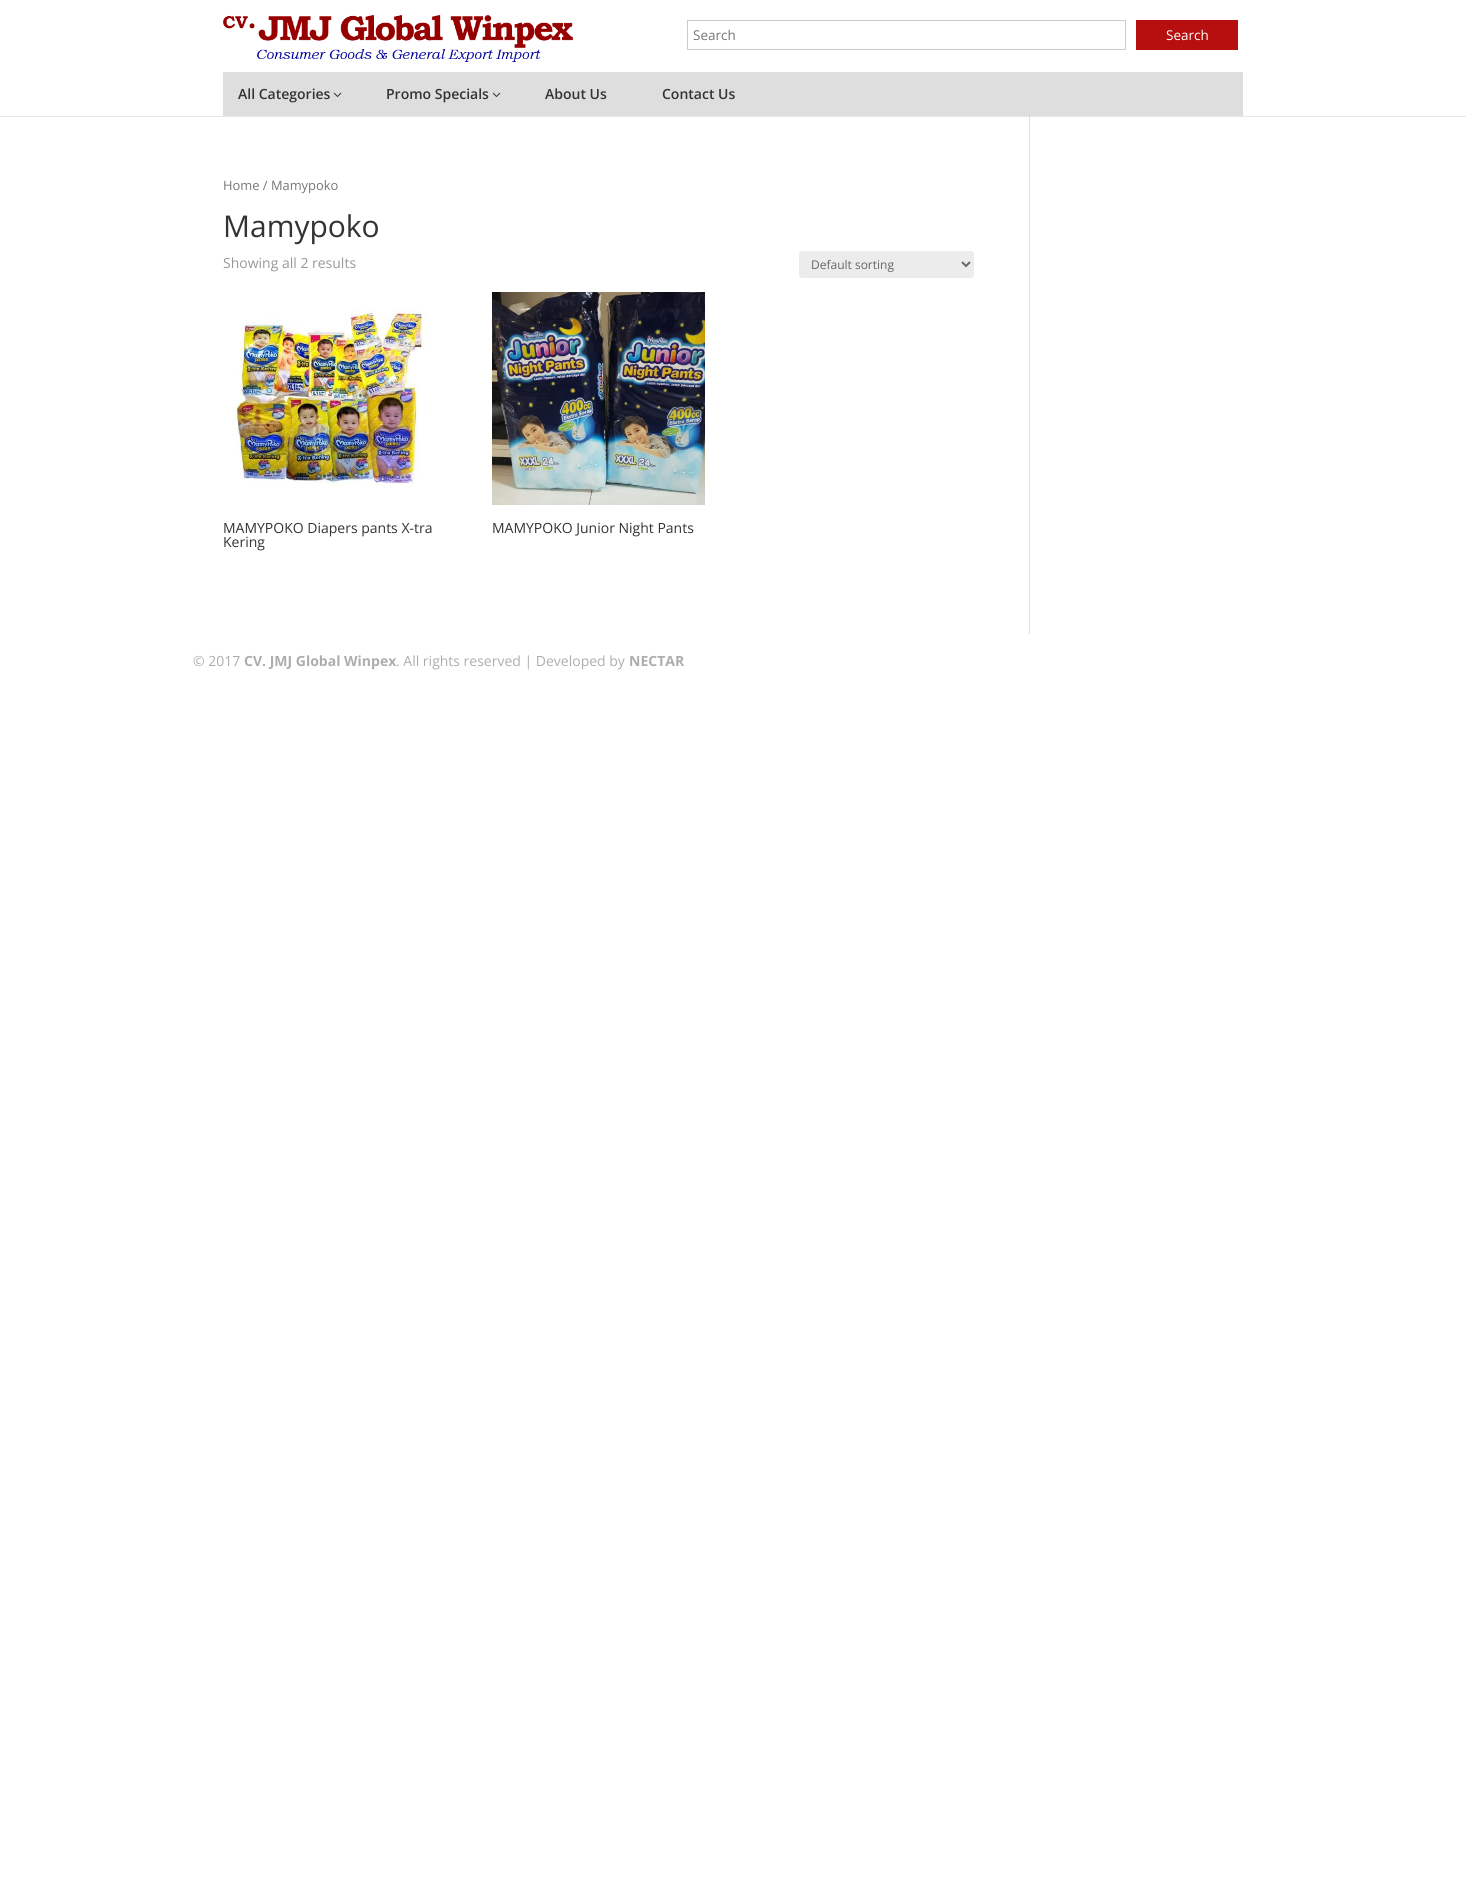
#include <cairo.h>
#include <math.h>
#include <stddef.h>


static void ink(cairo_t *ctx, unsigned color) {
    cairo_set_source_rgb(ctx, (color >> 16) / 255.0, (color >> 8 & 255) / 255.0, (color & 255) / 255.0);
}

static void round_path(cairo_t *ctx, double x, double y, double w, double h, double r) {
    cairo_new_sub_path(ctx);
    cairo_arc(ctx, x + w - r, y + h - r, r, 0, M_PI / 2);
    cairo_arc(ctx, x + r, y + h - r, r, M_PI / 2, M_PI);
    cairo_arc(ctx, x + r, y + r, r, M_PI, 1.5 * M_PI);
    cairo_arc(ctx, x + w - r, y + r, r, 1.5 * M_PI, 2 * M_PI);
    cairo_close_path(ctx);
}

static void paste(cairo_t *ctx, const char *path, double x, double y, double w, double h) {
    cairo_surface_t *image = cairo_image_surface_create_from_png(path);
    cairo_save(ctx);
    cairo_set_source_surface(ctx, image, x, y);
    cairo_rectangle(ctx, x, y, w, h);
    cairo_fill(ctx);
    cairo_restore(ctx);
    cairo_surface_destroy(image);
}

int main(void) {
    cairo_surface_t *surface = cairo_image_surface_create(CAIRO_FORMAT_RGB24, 1466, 1892);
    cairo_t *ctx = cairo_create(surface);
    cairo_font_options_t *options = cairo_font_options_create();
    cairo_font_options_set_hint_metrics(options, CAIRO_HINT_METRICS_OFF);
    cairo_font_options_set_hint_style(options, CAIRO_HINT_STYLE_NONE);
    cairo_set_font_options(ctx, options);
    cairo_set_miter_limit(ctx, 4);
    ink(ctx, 0xFFFFFF);
    cairo_paint(ctx);
    ink(ctx, 0xE6E6E6);
    cairo_rectangle(ctx, 0, 116, 1466, 1);
    cairo_fill(ctx);
    paste(ctx, "media/1.png", 223, 15, 350, 47);
    cairo_rectangle(ctx, 687.5, 20.5, 438, 29);
    ink(ctx, 0xCCCCCC);
    cairo_set_line_width(ctx, 1);
    cairo_stroke(ctx);
    cairo_select_font_face(ctx, "Open Sans", CAIRO_FONT_SLANT_NORMAL, CAIRO_FONT_WEIGHT_NORMAL);
    cairo_set_font_size(ctx, 13.5);
    ink(ctx, 0x767676);
    cairo_move_to(ctx, 693, 40);
    cairo_show_text(ctx, "Search");
    ink(ctx, 0xB70F0F);
    cairo_rectangle(ctx, 1136, 20, 102, 30);
    cairo_fill(ctx);
    ink(ctx, 0xFFFFFF);
    cairo_move_to(ctx, 1166, 40);
    cairo_show_text(ctx, "Search");
    ink(ctx, 0xDEDEDE);
    cairo_rectangle(ctx, 223, 72, 1020, 44);
    cairo_fill(ctx);
    cairo_select_font_face(ctx, "Open Sans SemiBold", CAIRO_FONT_SLANT_NORMAL, CAIRO_FONT_WEIGHT_NORMAL);
    cairo_set_font_size(ctx, 14);
    ink(ctx, 0x333333);
    cairo_move_to(ctx, 238, 99);
    cairo_show_text(ctx, "All Categories");
    paste(ctx, "media/2.png", 333, 92, 9, 5);
    cairo_move_to(ctx, 386, 99);
    cairo_show_text(ctx, "Promo Specials");
    paste(ctx, "media/2.png", 492, 92, 9, 5);
    cairo_move_to(ctx, 545, 99);
    cairo_show_text(ctx, "About Us");
    cairo_move_to(ctx, 662, 99);
    cairo_show_text(ctx, "Contact Us");
    cairo_select_font_face(ctx, "Open Sans", CAIRO_FONT_SLANT_NORMAL, CAIRO_FONT_WEIGHT_NORMAL);
    cairo_set_font_size(ctx, 12.9);
    ink(ctx, 0x767676);
    cairo_move_to(ctx, 223, 190);
    cairo_show_text(ctx, "Home / Mamypoko");
    cairo_set_font_size(ctx, 30);
    ink(ctx, 0x333333);
    cairo_move_to(ctx, 223, 237);
    cairo_show_text(ctx, "Mamypoko");
    cairo_set_font_size(ctx, 14);
    ink(ctx, 0x999999);
    cairo_move_to(ctx, 223, 268);
    cairo_show_text(ctx, "Showing all 2 results");
    ink(ctx, 0xECECEC);
    round_path(ctx, 799, 251, 175, 27, 3);
    cairo_fill(ctx);
    cairo_new_path(ctx);
    cairo_move_to(ctx, 962, 262);
    cairo_line_to(ctx, 966, 266);
    cairo_line_to(ctx, 970, 262);
    ink(ctx, 0x666666);
    cairo_set_line_width(ctx, 2);
    cairo_stroke(ctx);
    cairo_set_font_size(ctx, 12);
    cairo_move_to(ctx, 811, 269);
    cairo_show_text(ctx, "Default sorting");
    paste(ctx, "media/3.png", 232, 309, 195, 179);
    cairo_set_font_size(ctx, 14);
    ink(ctx, 0x333333);
    cairo_move_to(ctx, 223, 533);
    cairo_show_text(ctx, "MAMYPOKO Diapers pants X-tra");
    cairo_move_to(ctx, 223, 547);
    cairo_show_text(ctx, "Kering");
    paste(ctx, "media/4.png", 492, 292, 213, 213);
    cairo_move_to(ctx, 492, 533);
    cairo_show_text(ctx, "MAMYPOKO Junior Night Pants");
    ink(ctx, 0xE2E2E2);
    cairo_rectangle(ctx, 1029, 116, 1, 518);
    cairo_fill(ctx);
    ink(ctx, 0xCBCBCB);
    cairo_rectangle(ctx, 1029, 116, 1, 1);
    cairo_fill(ctx);
    ink(ctx, 0xADADAD);
    cairo_move_to(ctx, 193, 666);
    cairo_show_text(ctx, "© 2017");
    cairo_select_font_face(ctx, "Open Sans", CAIRO_FONT_SLANT_NORMAL, CAIRO_FONT_WEIGHT_BOLD);
    cairo_move_to(ctx, 244, 666);
    cairo_show_text(ctx, "CV. JMJ Global Winpex");
    cairo_select_font_face(ctx, "Open Sans", CAIRO_FONT_SLANT_NORMAL, CAIRO_FONT_WEIGHT_NORMAL);
    cairo_move_to(ctx, 396, 666);
    cairo_show_text(ctx, ". All rights reserved | Developed by");
    cairo_select_font_face(ctx, "Open Sans", CAIRO_FONT_SLANT_NORMAL, CAIRO_FONT_WEIGHT_BOLD);
    cairo_move_to(ctx, 629, 666);
    cairo_show_text(ctx, "NECTAR");
    cairo_surface_write_to_png(surface, "image.png");
    cairo_font_options_destroy(options);
    cairo_destroy(ctx);
    cairo_surface_destroy(surface);
    return 0;
}
